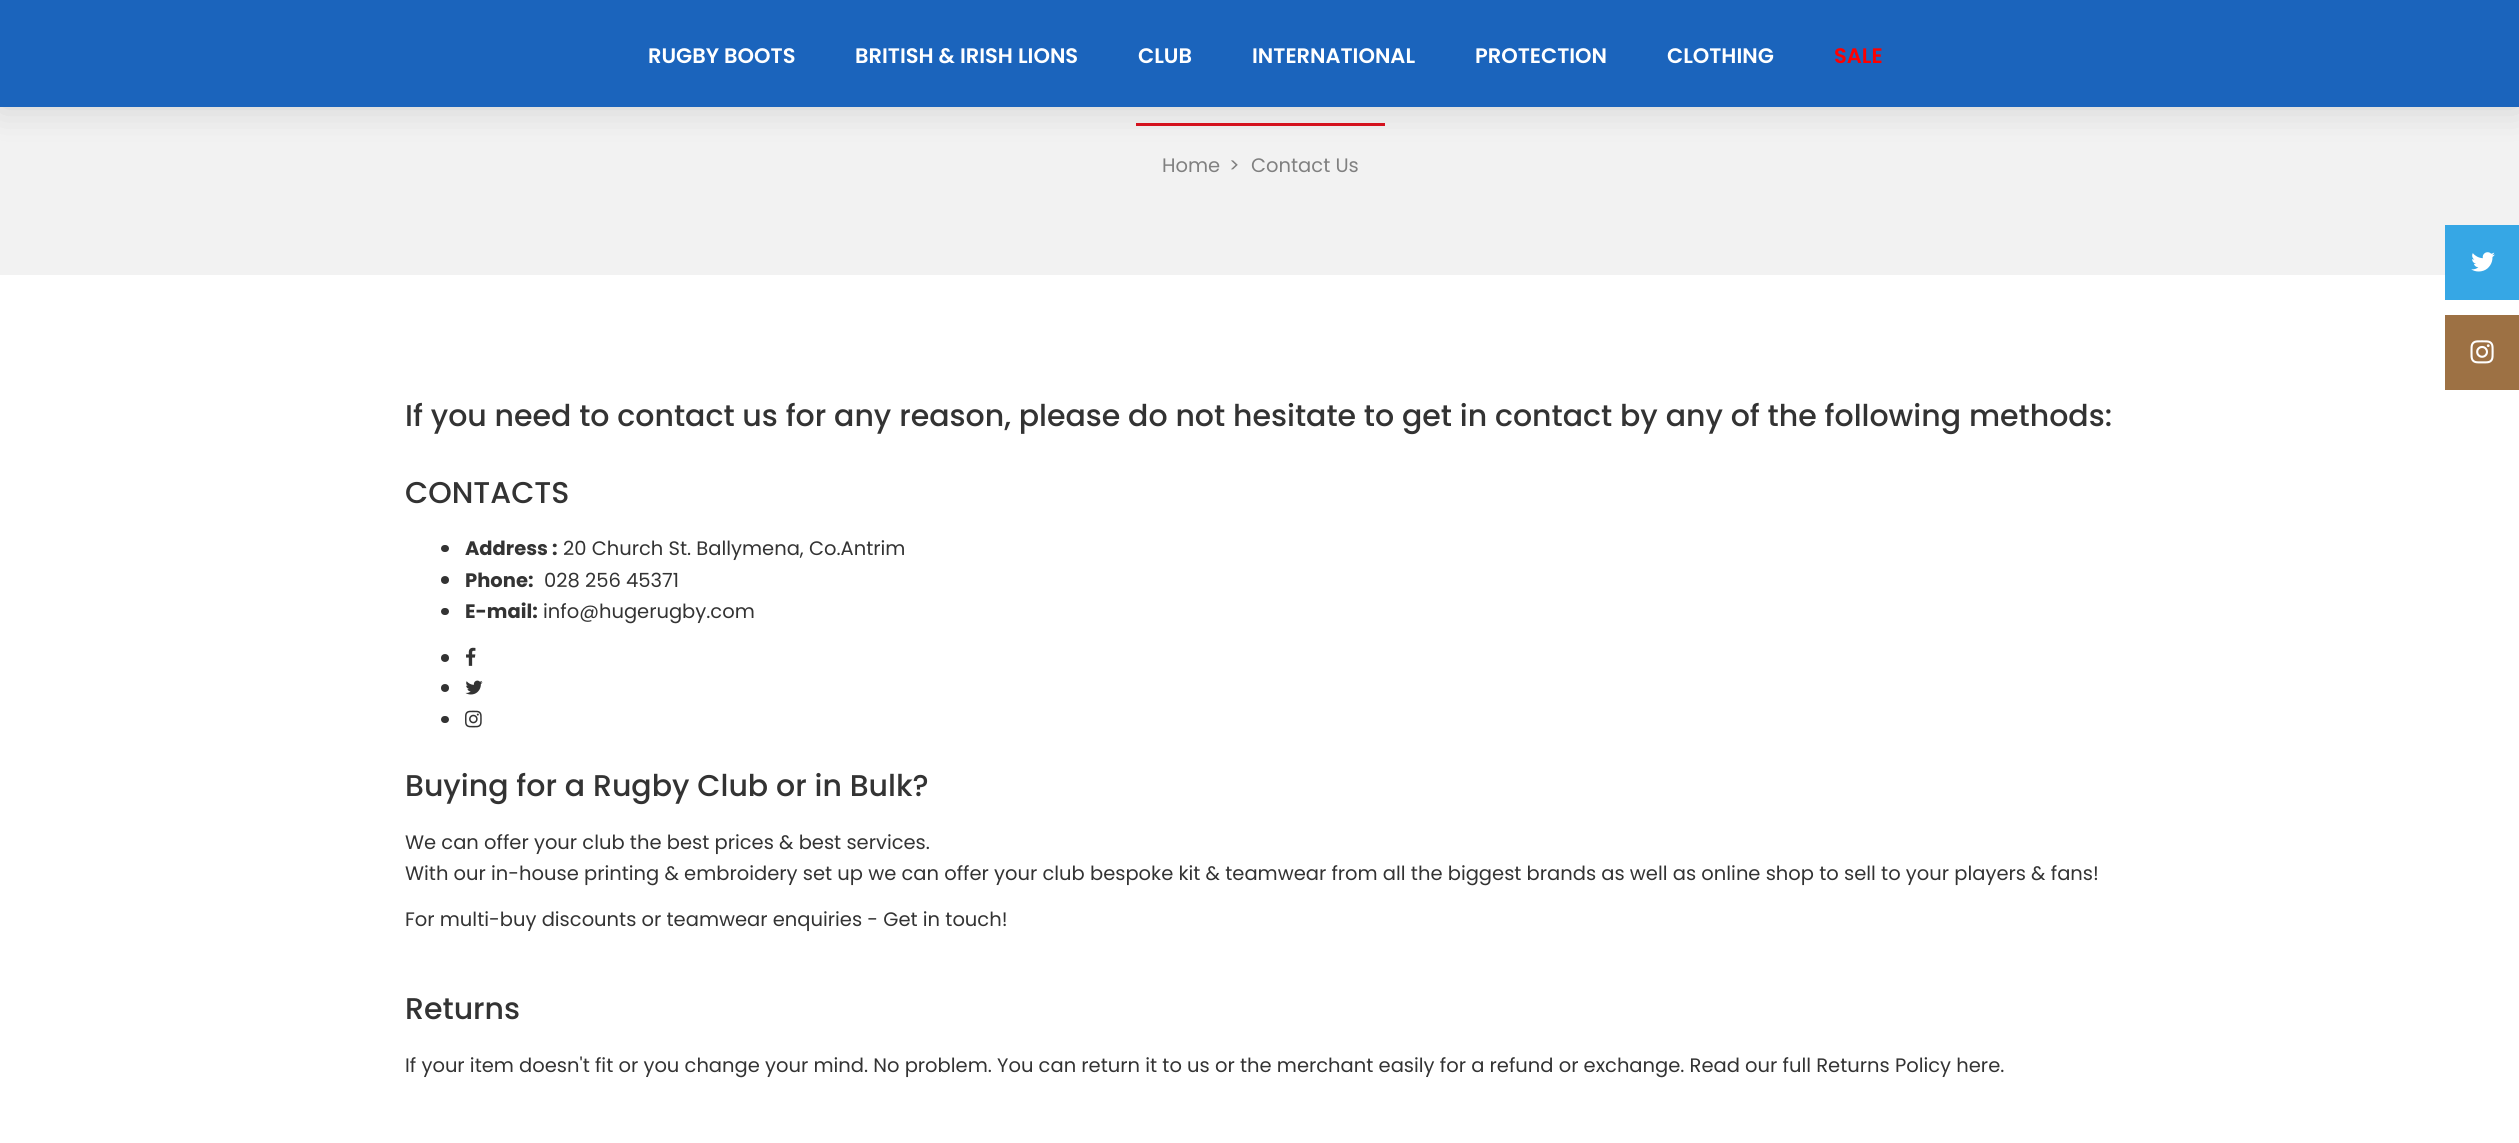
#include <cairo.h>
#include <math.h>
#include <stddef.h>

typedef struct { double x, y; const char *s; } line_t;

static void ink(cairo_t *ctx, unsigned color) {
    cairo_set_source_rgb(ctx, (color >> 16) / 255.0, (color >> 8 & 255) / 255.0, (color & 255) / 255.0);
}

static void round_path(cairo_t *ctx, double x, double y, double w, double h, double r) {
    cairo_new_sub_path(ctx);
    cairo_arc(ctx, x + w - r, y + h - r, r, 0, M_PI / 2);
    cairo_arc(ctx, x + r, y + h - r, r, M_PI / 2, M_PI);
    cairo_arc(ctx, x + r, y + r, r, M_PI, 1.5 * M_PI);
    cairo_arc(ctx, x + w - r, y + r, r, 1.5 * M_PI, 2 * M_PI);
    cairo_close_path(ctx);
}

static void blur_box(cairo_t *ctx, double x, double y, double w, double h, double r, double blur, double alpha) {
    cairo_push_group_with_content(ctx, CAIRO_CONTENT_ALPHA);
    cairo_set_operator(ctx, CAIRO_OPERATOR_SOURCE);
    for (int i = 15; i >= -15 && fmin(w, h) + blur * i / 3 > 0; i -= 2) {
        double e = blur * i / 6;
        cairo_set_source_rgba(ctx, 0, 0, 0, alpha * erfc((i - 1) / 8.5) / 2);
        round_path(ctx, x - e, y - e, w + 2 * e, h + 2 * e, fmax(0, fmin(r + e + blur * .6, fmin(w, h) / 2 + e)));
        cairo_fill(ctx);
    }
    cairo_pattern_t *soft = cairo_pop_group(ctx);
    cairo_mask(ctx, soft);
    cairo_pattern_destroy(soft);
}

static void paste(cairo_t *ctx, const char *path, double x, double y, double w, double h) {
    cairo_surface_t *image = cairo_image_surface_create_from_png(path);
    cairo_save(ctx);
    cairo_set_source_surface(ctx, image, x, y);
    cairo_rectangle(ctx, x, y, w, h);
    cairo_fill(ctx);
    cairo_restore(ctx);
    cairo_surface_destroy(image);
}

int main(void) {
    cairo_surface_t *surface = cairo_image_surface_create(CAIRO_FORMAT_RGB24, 2519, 1143);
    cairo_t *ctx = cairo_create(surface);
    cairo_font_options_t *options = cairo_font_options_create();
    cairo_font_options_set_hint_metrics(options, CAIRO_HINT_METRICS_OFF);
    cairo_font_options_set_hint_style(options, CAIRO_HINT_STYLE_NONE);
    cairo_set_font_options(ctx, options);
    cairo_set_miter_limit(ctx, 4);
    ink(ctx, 0xFFFFFF);
    cairo_paint(ctx);
    ink(ctx, 0xF2F2F2);
    cairo_rectangle(ctx, 0, 107, 2519, 168);
    cairo_fill(ctx);
    ink(ctx, 0xD9121F);
    cairo_rectangle(ctx, 1136, 123, 249, 3);
    cairo_fill(ctx);
    ink(ctx, 0x000000);
    blur_box(ctx, 0, 0, 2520, 107, 0, 19, 0.15);
    ink(ctx, 0x1B64BC);
    cairo_rectangle(ctx, 0, 0, 2519, 107);
    cairo_fill(ctx);
    cairo_select_font_face(ctx, "Poppins SemiBold", CAIRO_FONT_SLANT_NORMAL, CAIRO_FONT_WEIGHT_NORMAL);
    cairo_set_font_size(ctx, 21);
    ink(ctx, 0xFFFFFF);
    {
        static const line_t items[] = {
            {648, 63, "RUGBY BOOTS"},
            {855, 63, "BRITISH & IRISH LIONS"},
            {1138, 63, "CLUB"},
            {1252, 63, "INTERNATIONAL"},
            {1475, 63, "PROTECTION"},
            {1667, 63, "CLOTHING"},
        };
        for (size_t i = 0; i < sizeof items / sizeof *items; i++) {
            cairo_move_to(ctx, items[i].x, items[i].y);
            cairo_show_text(ctx, items[i].s);
        }
    }
    ink(ctx, 0xFF0000);
    cairo_move_to(ctx, 1834, 63);
    cairo_show_text(ctx, "SALE");
    cairo_select_font_face(ctx, "Poppins", CAIRO_FONT_SLANT_NORMAL, CAIRO_FONT_WEIGHT_NORMAL);
    cairo_set_font_size(ctx, 19.5);
    ink(ctx, 0x808080);
    {
        static const line_t items[] = {
            {1162, 172, "Home"},
            {1229, 172, ">"},
            {1251, 172, "Contact Us"},
        };
        for (size_t i = 0; i < sizeof items / sizeof *items; i++) {
            cairo_move_to(ctx, items[i].x, items[i].y);
            cairo_show_text(ctx, items[i].s);
        }
    }
    cairo_select_font_face(ctx, "Poppins Medium", CAIRO_FONT_SLANT_NORMAL, CAIRO_FONT_WEIGHT_NORMAL);
    cairo_set_font_size(ctx, 30);
    ink(ctx, 0x333333);
    cairo_move_to(ctx, 405, 426);
    cairo_show_text(ctx, "If you need to contact us for any reason, please do not hesitate to get in contact by any of the following methods:");
    cairo_move_to(ctx, 405, 503);
    cairo_show_text(ctx, "CONTACTS");
    round_path(ctx, 441, 545, 8, 7, 3.5);
    cairo_fill(ctx);
    cairo_select_font_face(ctx, "Poppins", CAIRO_FONT_SLANT_NORMAL, CAIRO_FONT_WEIGHT_BOLD);
    cairo_set_font_size(ctx, 19.5);
    cairo_move_to(ctx, 465, 555);
    cairo_show_text(ctx, "Address :");
    cairo_select_font_face(ctx, "Poppins", CAIRO_FONT_SLANT_NORMAL, CAIRO_FONT_WEIGHT_NORMAL);
    cairo_move_to(ctx, 563, 555);
    cairo_show_text(ctx, "20 Church St. Ballymena, Co.Antrim");
    cairo_new_path(ctx);
    cairo_arc(ctx, 445, 580, 4, 0, 2 * M_PI);
    cairo_fill(ctx);
    cairo_select_font_face(ctx, "Poppins", CAIRO_FONT_SLANT_NORMAL, CAIRO_FONT_WEIGHT_BOLD);
    cairo_move_to(ctx, 465, 587);
    cairo_show_text(ctx, "Phone:");
    cairo_select_font_face(ctx, "Poppins", CAIRO_FONT_SLANT_NORMAL, CAIRO_FONT_WEIGHT_NORMAL);
    cairo_move_to(ctx, 544, 587);
    cairo_show_text(ctx, "028 256 45371");
    round_path(ctx, 441, 608, 8, 7, 3.5);
    cairo_fill(ctx);
    cairo_select_font_face(ctx, "Poppins", CAIRO_FONT_SLANT_NORMAL, CAIRO_FONT_WEIGHT_BOLD);
    cairo_move_to(ctx, 465, 618);
    cairo_show_text(ctx, "E-mail:");
    cairo_select_font_face(ctx, "Poppins", CAIRO_FONT_SLANT_NORMAL, CAIRO_FONT_WEIGHT_NORMAL);
    cairo_move_to(ctx, 543, 618);
    cairo_show_text(ctx, "info@hugerugby.com");
    cairo_new_path(ctx);
    cairo_arc(ctx, 445, 658, 4, 0, 2 * M_PI);
    cairo_fill(ctx);
    paste(ctx, "media/1.png", 466, 647, 10, 19);
    cairo_arc(ctx, 445, 688, 4, 0, 2 * M_PI);
    cairo_fill(ctx);
    paste(ctx, "media/2.png", 465, 680, 18, 15);
    round_path(ctx, 441, 716, 8, 7, 3.5);
    cairo_fill(ctx);
    paste(ctx, "media/3.png", 465, 710, 17, 18);
    cairo_select_font_face(ctx, "Poppins Medium", CAIRO_FONT_SLANT_NORMAL, CAIRO_FONT_WEIGHT_NORMAL);
    cairo_set_font_size(ctx, 30);
    cairo_move_to(ctx, 405, 796);
    cairo_show_text(ctx, "Buying for a Rugby Club or in Bulk?");
    cairo_select_font_face(ctx, "Poppins", CAIRO_FONT_SLANT_NORMAL, CAIRO_FONT_WEIGHT_NORMAL);
    cairo_set_font_size(ctx, 19.5);
    {
        static const line_t items[] = {
            {405, 849, "We can offer your club the best prices & best services."},
            {405, 880, "With our in-house printing & embroidery set up we can offer your club bespoke kit & teamwear from all the biggest brands as well as online shop to sell to your players & fans!"},
            {405, 926, "For multi-buy discounts or teamwear enquiries - Get in touch!"},
        };
        for (size_t i = 0; i < sizeof items / sizeof *items; i++) {
            cairo_move_to(ctx, items[i].x, items[i].y);
            cairo_show_text(ctx, items[i].s);
        }
    }
    cairo_select_font_face(ctx, "Poppins Medium", CAIRO_FONT_SLANT_NORMAL, CAIRO_FONT_WEIGHT_NORMAL);
    cairo_set_font_size(ctx, 30);
    cairo_move_to(ctx, 405, 1019);
    cairo_show_text(ctx, "Returns");
    cairo_select_font_face(ctx, "Poppins", CAIRO_FONT_SLANT_NORMAL, CAIRO_FONT_WEIGHT_NORMAL);
    cairo_set_font_size(ctx, 19.5);
    cairo_move_to(ctx, 405, 1072);
    cairo_show_text(ctx, "If your item doesn't fit or you change your mind. No problem. You can return it to us or the merchant easily for a refund or exchange. Read our full Returns Policy here.");
    ink(ctx, 0x36A7E5);
    cairo_rectangle(ctx, 2445, 225, 74, 75);
    cairo_fill(ctx);
    paste(ctx, "media/4.png", 2471, 252, 24, 20);
    ink(ctx, 0x9D7144);
    cairo_rectangle(ctx, 2445, 315, 74, 75);
    cairo_fill(ctx);
    paste(ctx, "media/5.png", 2470, 340, 24, 24);
    cairo_surface_write_to_png(surface, "image.png");
    cairo_font_options_destroy(options);
    cairo_destroy(ctx);
    cairo_surface_destroy(surface);
    return 0;
}
